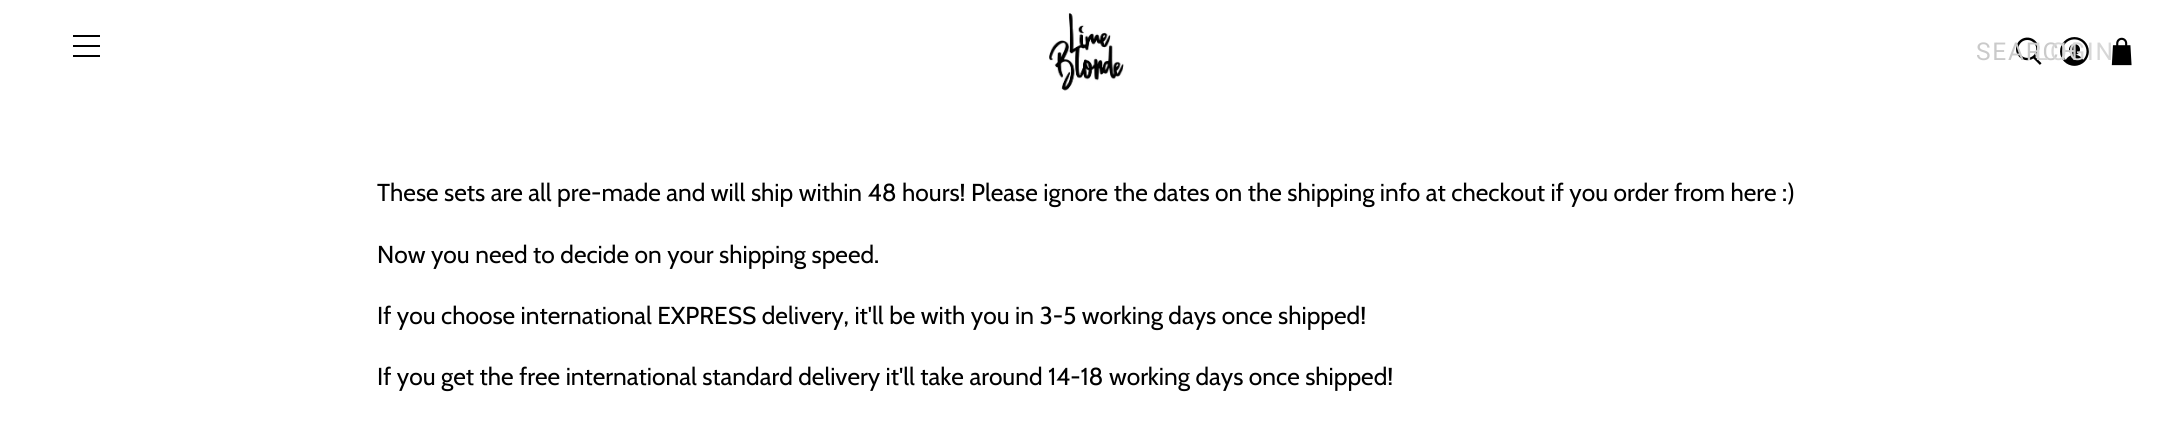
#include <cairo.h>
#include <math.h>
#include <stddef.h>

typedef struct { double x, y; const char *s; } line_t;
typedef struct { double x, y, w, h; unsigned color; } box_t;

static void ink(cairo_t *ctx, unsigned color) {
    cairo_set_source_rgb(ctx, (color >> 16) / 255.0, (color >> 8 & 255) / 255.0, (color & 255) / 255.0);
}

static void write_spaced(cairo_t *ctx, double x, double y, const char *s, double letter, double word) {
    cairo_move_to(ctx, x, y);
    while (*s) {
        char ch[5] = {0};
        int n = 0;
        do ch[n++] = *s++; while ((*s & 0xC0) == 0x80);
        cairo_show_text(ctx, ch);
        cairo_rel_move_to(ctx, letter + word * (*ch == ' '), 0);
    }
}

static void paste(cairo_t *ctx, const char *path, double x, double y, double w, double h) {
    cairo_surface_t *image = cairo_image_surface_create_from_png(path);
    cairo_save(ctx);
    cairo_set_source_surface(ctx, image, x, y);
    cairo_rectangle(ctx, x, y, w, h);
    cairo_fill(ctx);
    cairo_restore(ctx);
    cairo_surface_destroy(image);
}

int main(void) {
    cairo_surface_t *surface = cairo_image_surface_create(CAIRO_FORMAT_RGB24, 2171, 434);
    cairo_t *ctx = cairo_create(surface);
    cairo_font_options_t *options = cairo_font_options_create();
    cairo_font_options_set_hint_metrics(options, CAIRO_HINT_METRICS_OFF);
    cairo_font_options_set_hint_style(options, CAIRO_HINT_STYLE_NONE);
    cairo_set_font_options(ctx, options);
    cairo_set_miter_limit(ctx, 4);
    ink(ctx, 0xFFFFFF);
    cairo_paint(ctx);
    {
        static const box_t items[] = {
            {73, 35, 27, 2, 0x000000},
            {73, 45, 27, 2, 0x000000},
            {73, 55, 27, 2, 0x000000},
        };
        for (size_t i = 0; i < sizeof items / sizeof *items; i++) {
            ink(ctx, items[i].color);
            cairo_rectangle(ctx, items[i].x, items[i].y, items[i].w, items[i].h);
            cairo_fill(ctx);
        }
    }
    paste(ctx, "media/1.png", 1049, 13, 75, 78);
    paste(ctx, "media/2.png", 2016, 37, 26, 28);
    paste(ctx, "media/4.png", 2060, 37, 29, 29);
    cairo_select_font_face(ctx, "Roboto", CAIRO_FONT_SLANT_NORMAL, CAIRO_FONT_WEIGHT_NORMAL);
    cairo_set_font_size(ctx, 24.5);
    ink(ctx, 0xCACACA);
    write_spaced(ctx, 1976, 60, "SEARCH", 1.75, 0);
    ink(ctx, 0xD7D7D7);
    write_spaced(ctx, 2035, 60, "LOGIN", 1.75, 0);
    paste(ctx, "media/3.png", 2111, 37, 21, 29);
    cairo_select_font_face(ctx, "Cabin", CAIRO_FONT_SLANT_NORMAL, CAIRO_FONT_WEIGHT_NORMAL);
    ink(ctx, 0x000000);
    {
        static const line_t items[] = {
            {377, 201, "These sets are all pre-made and will ship within 48 hours! Please ignore the dates on the shipping info at checkout if you order from here :)"},
            {377, 263, "Now you need to decide on your shipping speed."},
            {377, 324, "If you choose international EXPRESS delivery, it'll be with you in 3-5 working days once shipped!"},
            {377, 385, "If you get the free international standard delivery it'll take around 14-18 working days once shipped!"},
        };
        for (size_t i = 0; i < sizeof items / sizeof *items; i++) {
            cairo_move_to(ctx, items[i].x, items[i].y);
            cairo_show_text(ctx, items[i].s);
        }
    }
    cairo_surface_write_to_png(surface, "image.png");
    cairo_font_options_destroy(options);
    cairo_destroy(ctx);
    cairo_surface_destroy(surface);
    return 0;
}
